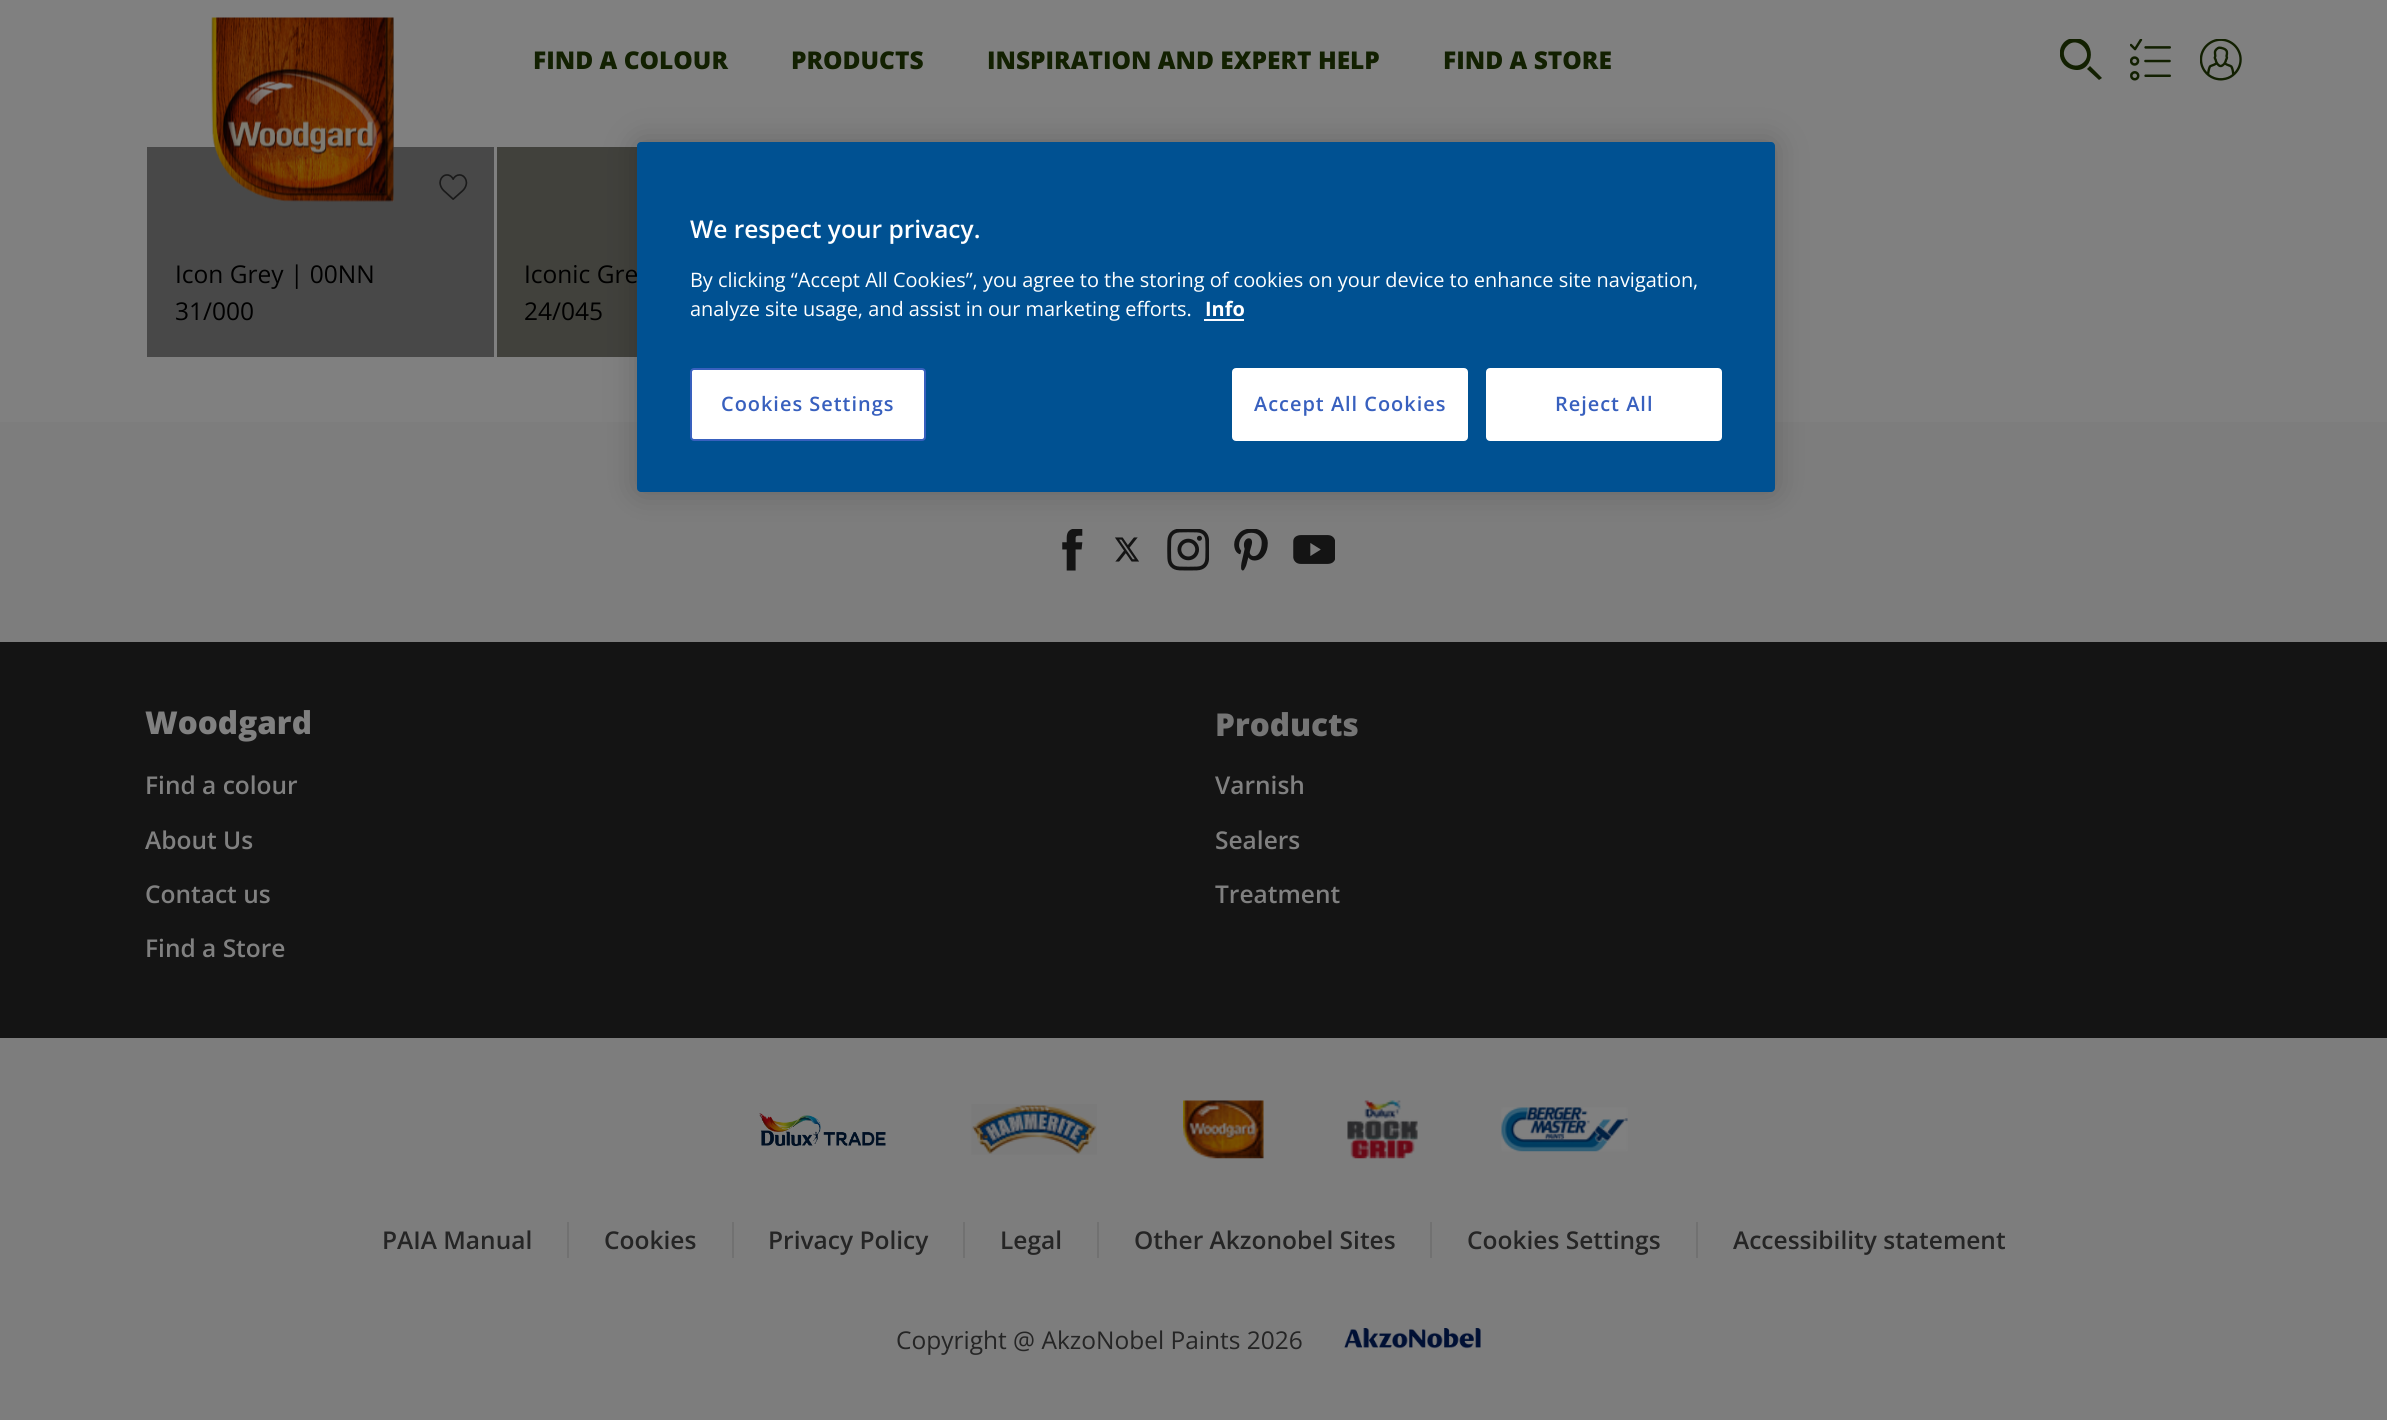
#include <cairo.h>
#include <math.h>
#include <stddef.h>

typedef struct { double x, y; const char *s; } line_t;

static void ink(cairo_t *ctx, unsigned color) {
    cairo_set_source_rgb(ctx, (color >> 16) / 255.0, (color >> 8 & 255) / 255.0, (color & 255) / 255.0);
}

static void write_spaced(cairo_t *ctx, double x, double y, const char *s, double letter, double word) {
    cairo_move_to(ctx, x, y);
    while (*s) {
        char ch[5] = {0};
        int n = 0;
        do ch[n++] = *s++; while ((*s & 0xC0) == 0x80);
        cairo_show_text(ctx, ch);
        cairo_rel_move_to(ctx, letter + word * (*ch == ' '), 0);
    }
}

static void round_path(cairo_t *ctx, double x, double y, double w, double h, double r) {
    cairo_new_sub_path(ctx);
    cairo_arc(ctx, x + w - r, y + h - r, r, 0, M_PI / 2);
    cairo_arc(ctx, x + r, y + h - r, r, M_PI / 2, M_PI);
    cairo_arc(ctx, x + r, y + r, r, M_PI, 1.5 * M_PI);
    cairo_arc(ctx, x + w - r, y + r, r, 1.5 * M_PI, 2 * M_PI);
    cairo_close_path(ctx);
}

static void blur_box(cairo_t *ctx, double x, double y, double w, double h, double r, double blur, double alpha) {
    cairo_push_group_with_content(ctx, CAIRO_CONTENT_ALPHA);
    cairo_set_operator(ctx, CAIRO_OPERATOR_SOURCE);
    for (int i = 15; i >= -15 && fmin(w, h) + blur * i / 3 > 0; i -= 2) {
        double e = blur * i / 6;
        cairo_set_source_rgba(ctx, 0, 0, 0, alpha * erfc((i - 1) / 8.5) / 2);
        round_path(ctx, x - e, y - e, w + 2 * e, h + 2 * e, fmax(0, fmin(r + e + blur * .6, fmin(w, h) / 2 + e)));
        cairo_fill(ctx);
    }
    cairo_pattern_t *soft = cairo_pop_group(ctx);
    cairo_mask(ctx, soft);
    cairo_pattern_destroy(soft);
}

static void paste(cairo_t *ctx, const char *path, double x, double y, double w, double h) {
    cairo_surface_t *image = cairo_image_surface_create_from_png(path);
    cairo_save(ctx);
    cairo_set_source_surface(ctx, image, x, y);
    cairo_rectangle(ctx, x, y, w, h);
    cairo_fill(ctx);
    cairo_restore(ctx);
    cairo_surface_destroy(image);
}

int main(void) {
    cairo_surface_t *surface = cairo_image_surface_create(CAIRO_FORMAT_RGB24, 2387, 1420);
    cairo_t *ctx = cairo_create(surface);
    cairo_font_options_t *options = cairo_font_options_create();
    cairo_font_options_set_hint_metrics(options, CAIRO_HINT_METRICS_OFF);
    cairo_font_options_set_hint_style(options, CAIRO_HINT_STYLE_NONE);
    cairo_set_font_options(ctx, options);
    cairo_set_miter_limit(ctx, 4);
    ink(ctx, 0x808080);
    cairo_paint(ctx);
    ink(ctx, 0x484848);
    cairo_rectangle(ctx, 147, 147, 347, 210);
    cairo_fill(ctx);
    paste(ctx, "media/1.png", 211, 17, 183, 185);
    cairo_select_font_face(ctx, "Open Sans ExtraBold", CAIRO_FONT_SLANT_NORMAL, CAIRO_FONT_WEIGHT_NORMAL);
    cairo_set_font_size(ctx, 24.5);
    ink(ctx, 0x122001);
    {
        static const line_t items[] = {
            {533, 69, "FIND A COLOUR"},
            {791, 69, "PRODUCTS"},
            {987, 69, "INSPIRATION AND EXPERT HELP"},
            {1443, 69, "FIND A STORE"},
        };
        for (size_t i = 0; i < sizeof items / sizeof *items; i++) {
            cairo_move_to(ctx, items[i].x, items[i].y);
            cairo_show_text(ctx, items[i].s);
        }
    }
    cairo_save(ctx);
    cairo_rectangle(ctx, 2060, 39, 42, 42);
    cairo_clip(ctx);
    cairo_new_path(ctx);
    cairo_move_to(ctx, 2075, 38);
    cairo_curve_to(ctx, 2055, 38, 2054, 68, 2076, 70);
    cairo_curve_to(ctx, 2095, 71, 2097, 39, 2075, 38);
    cairo_move_to(ctx, 2084, 62);
    cairo_curve_to(ctx, 2073, 73, 2057, 56, 2067, 46);
    cairo_curve_to(ctx, 2077, 35, 2094, 52, 2084, 62);
    cairo_close_path(ctx);
    cairo_move_to(ctx, 2102, 78);
    cairo_line_to(ctx, 2099, 80);
    cairo_line_to(ctx, 2087, 69);
    cairo_line_to(ctx, 2090, 66);
    cairo_close_path(ctx);
    cairo_fill(ctx);
    cairo_restore(ctx);
    paste(ctx, "media/2.png", 2130, 39, 41, 42);
    paste(ctx, "media/3.png", 2200, 39, 42, 42);
    paste(ctx, "media/4.png", 439, 174, 29, 26);
    cairo_select_font_face(ctx, "Open Sans", CAIRO_FONT_SLANT_NORMAL, CAIRO_FONT_WEIGHT_NORMAL);
    ink(ctx, 0x000000);
    cairo_move_to(ctx, 175, 283);
    cairo_show_text(ctx, "Icon Grey | 00NN");
    cairo_move_to(ctx, 175, 320);
    cairo_show_text(ctx, "31/000");
    ink(ctx, 0x41413C);
    cairo_rectangle(ctx, 497, 147, 140, 210);
    cairo_fill(ctx);
    ink(ctx, 0x000000);
    cairo_move_to(ctx, 524, 283);
    cairo_show_text(ctx, "Iconic Gre");
    cairo_move_to(ctx, 524, 320);
    cairo_show_text(ctx, "24/045");
    ink(ctx, 0x7D7D7D);
    cairo_rectangle(ctx, 0, 422, 2387, 220);
    cairo_fill(ctx);
    paste(ctx, "media/5.png", 1062, 529, 21, 42);
    paste(ctx, "media/6.png", 1115, 537, 24, 25);
    paste(ctx, "media/7.png", 1167, 529, 42, 42);
    paste(ctx, "media/8.png", 1234, 529, 34, 42);
    paste(ctx, "media/9.png", 1293, 535, 42, 29);
    ink(ctx, 0x141414);
    cairo_rectangle(ctx, 0, 642, 2387, 396);
    cairo_fill(ctx);
    cairo_select_font_face(ctx, "Open Sans ExtraBold", CAIRO_FONT_SLANT_NORMAL, CAIRO_FONT_WEIGHT_NORMAL);
    cairo_set_font_size(ctx, 31.5);
    ink(ctx, 0x808080);
    cairo_move_to(ctx, 145, 734);
    cairo_show_text(ctx, "Woodgard");
    cairo_select_font_face(ctx, "Open Sans SemiBold", CAIRO_FONT_SLANT_NORMAL, CAIRO_FONT_WEIGHT_NORMAL);
    cairo_set_font_size(ctx, 24.5);
    {
        static const line_t items[] = {
            {145, 794, "Find a colour"},
            {145, 849, "About Us"},
            {145, 903, "Contact us"},
            {145, 957, "Find a Store"},
        };
        for (size_t i = 0; i < sizeof items / sizeof *items; i++) {
            cairo_move_to(ctx, items[i].x, items[i].y);
            cairo_show_text(ctx, items[i].s);
        }
    }
    cairo_select_font_face(ctx, "Open Sans ExtraBold", CAIRO_FONT_SLANT_NORMAL, CAIRO_FONT_WEIGHT_NORMAL);
    cairo_set_font_size(ctx, 31.5);
    ink(ctx, 0x757575);
    cairo_move_to(ctx, 1215, 736);
    cairo_show_text(ctx, "Products");
    cairo_select_font_face(ctx, "Open Sans SemiBold", CAIRO_FONT_SLANT_NORMAL, CAIRO_FONT_WEIGHT_NORMAL);
    cairo_set_font_size(ctx, 24.5);
    ink(ctx, 0x808080);
    {
        static const line_t items[] = {
            {1215, 794, "Varnish"},
            {1215, 849, "Sealers"},
            {1215, 903, "Treatment"},
        };
        for (size_t i = 0; i < sizeof items / sizeof *items; i++) {
            cairo_move_to(ctx, items[i].x, items[i].y);
            cairo_show_text(ctx, items[i].s);
        }
    }
    ink(ctx, 0x7D7D7D);
    cairo_rectangle(ctx, 0, 1038, 2387, 382);
    cairo_fill(ctx);
    paste(ctx, "media/10.png", 759, 1113, 127, 33);
    paste(ctx, "media/11.png", 971, 1104, 126, 51);
    paste(ctx, "media/12.png", 1183, 1100, 81, 59);
    paste(ctx, "media/13.png", 1347, 1100, 71, 59);
    paste(ctx, "media/14.png", 1501, 1107, 127, 45);
    ink(ctx, 0x717171);
    cairo_rectangle(ctx, 567, 1222, 2, 36);
    cairo_fill(ctx);
    ink(ctx, 0x252525);
    cairo_move_to(ctx, 382, 1249);
    cairo_show_text(ctx, "PAIA Manual");
    ink(ctx, 0x717171);
    cairo_rectangle(ctx, 732, 1222, 2, 36);
    cairo_fill(ctx);
    ink(ctx, 0x252525);
    cairo_move_to(ctx, 604, 1249);
    cairo_show_text(ctx, "Cookies");
    ink(ctx, 0x717171);
    cairo_rectangle(ctx, 963, 1222, 2, 36);
    cairo_fill(ctx);
    ink(ctx, 0x252525);
    cairo_move_to(ctx, 768, 1249);
    cairo_show_text(ctx, "Privacy Policy");
    ink(ctx, 0x717171);
    cairo_rectangle(ctx, 1097, 1222, 2, 36);
    cairo_fill(ctx);
    ink(ctx, 0x252525);
    cairo_move_to(ctx, 1000, 1249);
    cairo_show_text(ctx, "Legal");
    ink(ctx, 0x717171);
    cairo_rectangle(ctx, 1430, 1222, 2, 36);
    cairo_fill(ctx);
    ink(ctx, 0x252525);
    cairo_move_to(ctx, 1134, 1249);
    cairo_show_text(ctx, "Other Akzonobel Sites");
    ink(ctx, 0x717171);
    cairo_rectangle(ctx, 1696, 1222, 2, 36);
    cairo_fill(ctx);
    ink(ctx, 0x252525);
    cairo_move_to(ctx, 1467, 1249);
    cairo_show_text(ctx, "Cookies Settings");
    cairo_move_to(ctx, 1733, 1249);
    cairo_show_text(ctx, "Accessibility statement");
    cairo_select_font_face(ctx, "Open Sans", CAIRO_FONT_SLANT_NORMAL, CAIRO_FONT_WEIGHT_NORMAL);
    cairo_move_to(ctx, 896, 1349);
    cairo_show_text(ctx, "Copyright @ AkzoNobel Paints 2026");
    paste(ctx, "media/15.png", 1344, 1328, 137, 21);
    ink(ctx, 0x000000);
    blur_box(ctx, 637, 142, 1138, 350, 4, 16, 0.2);
    ink(ctx, 0x005192);
    round_path(ctx, 637, 142, 1138, 350, 4);
    cairo_fill(ctx);
    cairo_select_font_face(ctx, "Open Sans SemiBold", CAIRO_FONT_SLANT_NORMAL, CAIRO_FONT_WEIGHT_NORMAL);
    ink(ctx, 0xFFFFFF);
    cairo_move_to(ctx, 690, 238);
    cairo_show_text(ctx, "We respect your privacy.");
    cairo_select_font_face(ctx, "Open Sans", CAIRO_FONT_SLANT_NORMAL, CAIRO_FONT_WEIGHT_NORMAL);
    cairo_set_font_size(ctx, 19.92);
    cairo_move_to(ctx, 690, 287);
    cairo_show_text(ctx, "By clicking “Accept All Cookies”, you agree to the storing of cookies on your device to enhance site navigation,");
    cairo_move_to(ctx, 690, 316);
    cairo_show_text(ctx, "analyze site usage, and assist in our marketing efforts.");
    cairo_select_font_face(ctx, "Open Sans", CAIRO_FONT_SLANT_NORMAL, CAIRO_FONT_WEIGHT_BOLD);
    cairo_move_to(ctx, 1205, 316);
    cairo_show_text(ctx, "Info");
    ink(ctx, 0xFAFBFF);
    cairo_rectangle(ctx, 1204, 319, 40, 2);
    cairo_fill(ctx);
    ink(ctx, 0xFFFFFF);
    round_path(ctx, 691, 369, 234, 71, 3);
    cairo_fill_preserve(ctx);
    ink(ctx, 0x3860BE);
    cairo_stroke(ctx);
    cairo_select_font_face(ctx, "Open Sans SemiBold", CAIRO_FONT_SLANT_NORMAL, CAIRO_FONT_WEIGHT_NORMAL);
    write_spaced(ctx, 721, 411, "Cookies Settings", 1, 0);
    ink(ctx, 0xFFFFFF);
    round_path(ctx, 1233, 369, 234, 71, 3);
    cairo_fill_preserve(ctx);
    cairo_stroke(ctx);
    ink(ctx, 0x3860BE);
    write_spaced(ctx, 1254, 411, "Accept All Cookies", 1, 0);
    ink(ctx, 0xFFFFFF);
    round_path(ctx, 1487, 369, 234, 71, 3);
    cairo_fill_preserve(ctx);
    cairo_stroke(ctx);
    ink(ctx, 0x3860BE);
    write_spaced(ctx, 1555, 411, "Reject All", 1, 0);
    cairo_surface_write_to_png(surface, "image.png");
    cairo_font_options_destroy(options);
    cairo_destroy(ctx);
    cairo_surface_destroy(surface);
    return 0;
}
